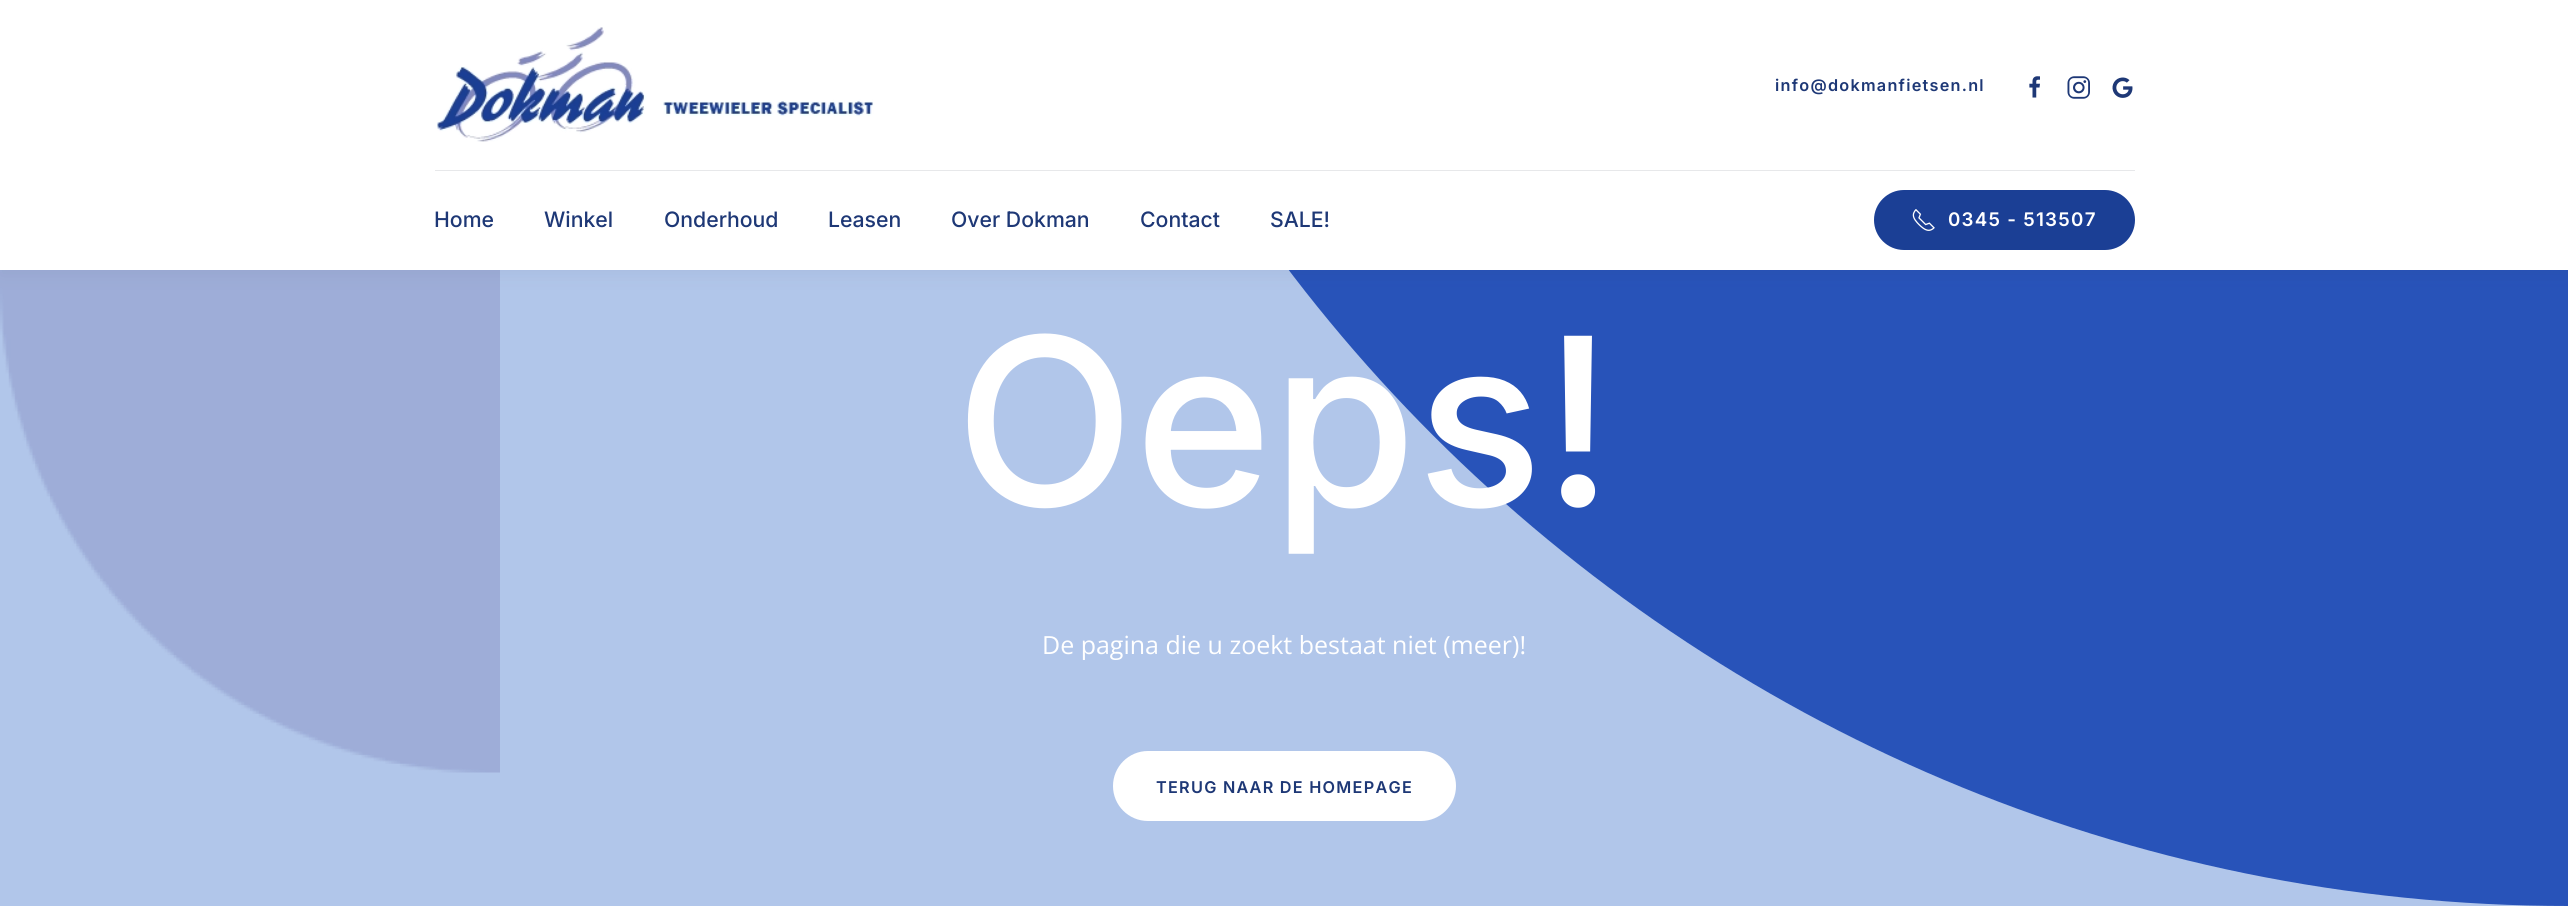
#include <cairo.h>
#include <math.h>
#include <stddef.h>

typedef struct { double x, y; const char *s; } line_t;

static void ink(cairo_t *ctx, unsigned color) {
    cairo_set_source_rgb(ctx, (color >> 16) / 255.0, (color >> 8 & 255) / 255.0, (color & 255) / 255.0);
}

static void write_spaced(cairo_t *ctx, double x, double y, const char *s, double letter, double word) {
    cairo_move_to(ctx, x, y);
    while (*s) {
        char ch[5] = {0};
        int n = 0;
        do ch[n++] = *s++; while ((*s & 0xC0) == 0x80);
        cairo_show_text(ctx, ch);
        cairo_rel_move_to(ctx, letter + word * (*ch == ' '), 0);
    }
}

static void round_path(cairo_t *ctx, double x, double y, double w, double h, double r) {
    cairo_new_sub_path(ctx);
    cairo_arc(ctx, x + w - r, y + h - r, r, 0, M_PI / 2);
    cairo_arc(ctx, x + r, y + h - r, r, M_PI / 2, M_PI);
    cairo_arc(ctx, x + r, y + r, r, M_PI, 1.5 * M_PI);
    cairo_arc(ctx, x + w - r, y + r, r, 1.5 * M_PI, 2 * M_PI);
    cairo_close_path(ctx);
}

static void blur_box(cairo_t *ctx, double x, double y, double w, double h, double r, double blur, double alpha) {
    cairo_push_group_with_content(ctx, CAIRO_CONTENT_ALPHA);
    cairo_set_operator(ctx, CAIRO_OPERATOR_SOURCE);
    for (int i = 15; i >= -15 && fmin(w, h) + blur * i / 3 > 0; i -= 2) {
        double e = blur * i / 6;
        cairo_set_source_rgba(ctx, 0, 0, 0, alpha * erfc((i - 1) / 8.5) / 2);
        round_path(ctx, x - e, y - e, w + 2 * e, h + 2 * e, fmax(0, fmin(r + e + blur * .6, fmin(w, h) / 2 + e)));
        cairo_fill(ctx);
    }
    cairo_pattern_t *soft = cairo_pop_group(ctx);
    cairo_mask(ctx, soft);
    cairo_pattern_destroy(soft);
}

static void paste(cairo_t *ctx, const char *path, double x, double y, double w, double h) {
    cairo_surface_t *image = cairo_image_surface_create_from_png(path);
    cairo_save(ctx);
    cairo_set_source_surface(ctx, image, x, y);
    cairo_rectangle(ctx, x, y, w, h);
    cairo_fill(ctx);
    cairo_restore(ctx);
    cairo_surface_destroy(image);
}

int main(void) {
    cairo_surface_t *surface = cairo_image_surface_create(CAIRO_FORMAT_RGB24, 2568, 906);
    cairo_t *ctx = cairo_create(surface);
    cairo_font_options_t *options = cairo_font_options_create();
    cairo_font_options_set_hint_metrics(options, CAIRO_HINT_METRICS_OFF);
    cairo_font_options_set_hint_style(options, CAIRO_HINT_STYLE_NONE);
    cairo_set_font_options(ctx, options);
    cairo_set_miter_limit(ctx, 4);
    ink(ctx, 0xB1C6EA);
    cairo_paint(ctx);
    paste(ctx, "media/6.png", 0, 270, 500, 503);
    ink(ctx, 0x2853B9);
    cairo_new_path(ctx);
    cairo_move_to(ctx, 962, -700);
    cairo_curve_to(ctx, 963, 187, 1682, 906, 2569, 906);
    cairo_line_to(ctx, 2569, -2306);
    cairo_curve_to(ctx, 1682, -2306, 963, -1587, 962, -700);
    cairo_close_path(ctx);
    cairo_fill(ctx);
    ink(ctx, 0x272C3F);
    blur_box(ctx, 0, 176, 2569, 100, 0, 9.5, 0.06);
    ink(ctx, 0xFFFFFF);
    cairo_rectangle(ctx, 0, 0, 2568, 270);
    cairo_fill(ctx);
    paste(ctx, "media/1.png", 436, 27, 438, 115);
    cairo_select_font_face(ctx, "Inter SemiBold", CAIRO_FONT_SLANT_NORMAL, CAIRO_FONT_WEIGHT_NORMAL);
    cairo_set_font_size(ctx, 16.25);
    ink(ctx, 0x1E3876);
    write_spaced(ctx, 1775, 91, "info@dokmanfietsen.nl", 1.25, 0);
    paste(ctx, "media/2.png", 2029, 76, 11, 22);
    paste(ctx, "media/3.png", 2067, 76, 23, 23);
    paste(ctx, "media/4.png", 2112, 77, 21, 21);
    ink(ctx, 0xE7E8EA);
    cairo_rectangle(ctx, 435, 170, 1700, 1);
    cairo_fill(ctx);
    cairo_select_font_face(ctx, "Inter Medium", CAIRO_FONT_SLANT_NORMAL, CAIRO_FONT_WEIGHT_NORMAL);
    cairo_set_font_size(ctx, 21.25);
    ink(ctx, 0x1E3876);
    {
        static const line_t items[] = {
            {434, 227, "Home"},
            {544, 227, "Winkel"},
            {664, 227, "Onderhoud"},
            {828, 227, "Leasen"},
            {951, 227, "Over Dokman"},
            {1140, 227, "Contact"},
            {1270, 227, "SALE!"},
        };
        for (size_t i = 0; i < sizeof items / sizeof *items; i++) {
            cairo_move_to(ctx, items[i].x, items[i].y);
            cairo_show_text(ctx, items[i].s);
        }
    }
    ink(ctx, 0x1B3F95);
    round_path(ctx, 1874, 190, 261, 60, 30);
    cairo_fill(ctx);
    paste(ctx, "media/5.png", 1912, 209, 23, 22);
    cairo_select_font_face(ctx, "Inter SemiBold", CAIRO_FONT_SLANT_NORMAL, CAIRO_FONT_WEIGHT_NORMAL);
    cairo_set_font_size(ctx, 18.75);
    ink(ctx, 0xFFFFFF);
    write_spaced(ctx, 1948, 226, "0345 - 513507", 1.25, 0);
    cairo_select_font_face(ctx, "Inter Medium", CAIRO_FONT_SLANT_NORMAL, CAIRO_FONT_WEIGHT_NORMAL);
    cairo_set_font_size(ctx, 234);
    cairo_move_to(ctx, 955, 506);
    cairo_show_text(ctx, "Oeps!");
    cairo_select_font_face(ctx, "Open Sans", CAIRO_FONT_SLANT_NORMAL, CAIRO_FONT_WEIGHT_NORMAL);
    cairo_set_font_size(ctx, 25);
    cairo_move_to(ctx, 1042, 654);
    cairo_show_text(ctx, "De pagina die u zoekt bestaat niet (meer)!");
    round_path(ctx, 1113, 751, 343, 70, 35);
    cairo_fill(ctx);
    cairo_select_font_face(ctx, "Inter SemiBold", CAIRO_FONT_SLANT_NORMAL, CAIRO_FONT_WEIGHT_NORMAL);
    cairo_set_font_size(ctx, 16.25);
    ink(ctx, 0x1E3876);
    write_spaced(ctx, 1156, 793, "TERUG NAAR DE HOMEPAGE", 1.25, 0);
    cairo_surface_write_to_png(surface, "image.png");
    cairo_font_options_destroy(options);
    cairo_destroy(ctx);
    cairo_surface_destroy(surface);
    return 0;
}
